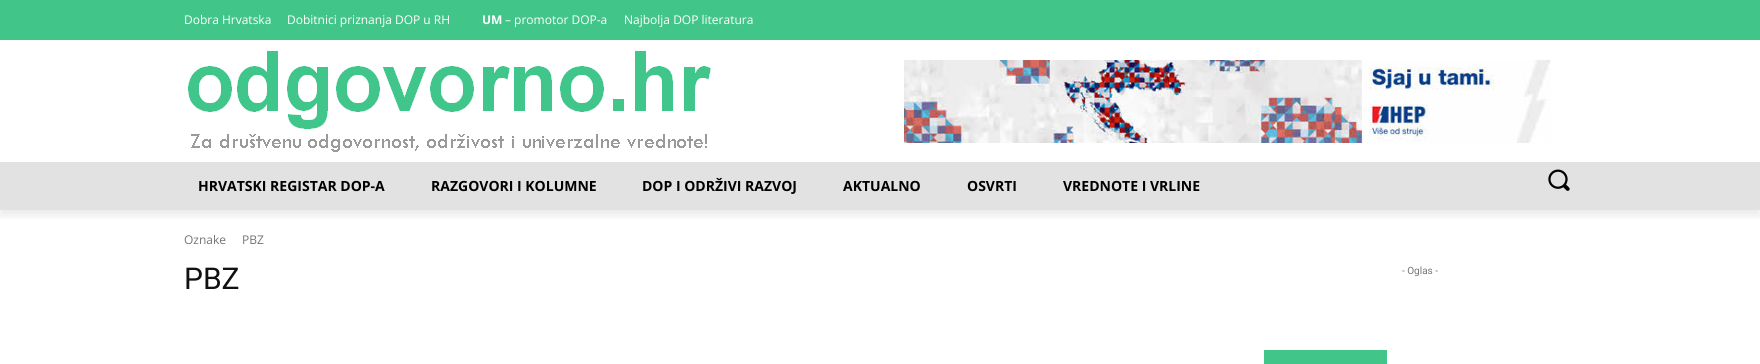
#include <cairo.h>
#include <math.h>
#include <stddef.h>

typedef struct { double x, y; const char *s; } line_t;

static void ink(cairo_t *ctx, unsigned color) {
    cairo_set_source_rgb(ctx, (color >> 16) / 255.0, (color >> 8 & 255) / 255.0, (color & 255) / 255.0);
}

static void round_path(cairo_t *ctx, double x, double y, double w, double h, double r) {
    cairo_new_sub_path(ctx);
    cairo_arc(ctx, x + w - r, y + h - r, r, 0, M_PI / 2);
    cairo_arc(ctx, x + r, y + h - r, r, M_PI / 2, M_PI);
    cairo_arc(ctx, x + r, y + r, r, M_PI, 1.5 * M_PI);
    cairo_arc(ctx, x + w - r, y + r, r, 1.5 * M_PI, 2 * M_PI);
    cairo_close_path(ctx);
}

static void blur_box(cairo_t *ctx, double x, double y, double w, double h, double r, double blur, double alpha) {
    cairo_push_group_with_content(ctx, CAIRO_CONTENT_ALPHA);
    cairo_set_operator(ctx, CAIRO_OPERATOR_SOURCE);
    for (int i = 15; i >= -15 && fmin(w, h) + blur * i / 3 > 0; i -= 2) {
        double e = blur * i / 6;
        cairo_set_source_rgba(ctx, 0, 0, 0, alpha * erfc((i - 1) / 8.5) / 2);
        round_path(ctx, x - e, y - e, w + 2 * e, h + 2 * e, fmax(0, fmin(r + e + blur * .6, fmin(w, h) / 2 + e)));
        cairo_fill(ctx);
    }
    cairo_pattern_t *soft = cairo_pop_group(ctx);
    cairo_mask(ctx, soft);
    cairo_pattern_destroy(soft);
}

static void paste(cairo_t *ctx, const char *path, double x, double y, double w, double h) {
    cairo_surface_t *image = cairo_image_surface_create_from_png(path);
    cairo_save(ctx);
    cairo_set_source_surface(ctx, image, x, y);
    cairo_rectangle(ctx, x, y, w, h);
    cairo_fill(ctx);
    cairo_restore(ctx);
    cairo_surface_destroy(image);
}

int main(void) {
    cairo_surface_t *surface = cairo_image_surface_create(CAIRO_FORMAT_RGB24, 1760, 364);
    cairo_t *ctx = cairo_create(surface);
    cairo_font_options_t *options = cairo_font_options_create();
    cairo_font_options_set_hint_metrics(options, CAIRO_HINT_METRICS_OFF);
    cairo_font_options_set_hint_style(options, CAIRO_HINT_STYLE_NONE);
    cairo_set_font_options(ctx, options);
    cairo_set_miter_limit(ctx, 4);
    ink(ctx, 0xFFFFFF);
    cairo_paint(ctx);
    ink(ctx, 0x42C589);
    cairo_rectangle(ctx, 0, 0, 1760, 40);
    cairo_fill(ctx);
    paste(ctx, "media/1.png", 188, 51, 523, 101);
    paste(ctx, "media/2.png", 904, 60, 647, 83);
    ink(ctx, 0xE2E2E2);
    cairo_rectangle(ctx, 0, 162, 1760, 48);
    cairo_fill(ctx);
    cairo_save(ctx);
    cairo_rectangle(ctx, 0, 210, 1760, 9);
    cairo_clip(ctx);
    ink(ctx, 0x000000);
    blur_box(ctx, 0, 6, 1760, 210, 0, 4, 0.08);
    cairo_restore(ctx);
    cairo_select_font_face(ctx, "Open Sans", CAIRO_FONT_SLANT_NORMAL, CAIRO_FONT_WEIGHT_NORMAL);
    cairo_set_font_size(ctx, 12);
    ink(ctx, 0xFFFFFF);
    cairo_move_to(ctx, 184, 24);
    cairo_show_text(ctx, "Dobra Hrvatska");
    cairo_move_to(ctx, 287, 24);
    cairo_show_text(ctx, "Dobitnici priznanja DOP u RH");
    cairo_select_font_face(ctx, "Open Sans", CAIRO_FONT_SLANT_NORMAL, CAIRO_FONT_WEIGHT_BOLD);
    cairo_move_to(ctx, 482, 24);
    cairo_show_text(ctx, "UM");
    cairo_select_font_face(ctx, "Open Sans", CAIRO_FONT_SLANT_NORMAL, CAIRO_FONT_WEIGHT_NORMAL);
    cairo_move_to(ctx, 505, 24);
    cairo_show_text(ctx, "– promotor DOP-a");
    cairo_move_to(ctx, 624, 24);
    cairo_show_text(ctx, "Najbolja DOP literatura");
    cairo_select_font_face(ctx, "Open Sans", CAIRO_FONT_SLANT_NORMAL, CAIRO_FONT_WEIGHT_BOLD);
    cairo_set_font_size(ctx, 14);
    ink(ctx, 0x000000);
    {
        static const line_t items[] = {
            {198, 191, "HRVATSKI REGISTAR DOP-A"},
            {431, 191, "RAZGOVORI I KOLUMNE"},
            {642, 191, "DOP I ODRŽIVI RAZVOJ"},
            {843, 191, "AKTUALNO"},
            {967, 191, "OSVRTI"},
            {1063, 191, "VREDNOTE I VRLINE"},
        };
        for (size_t i = 0; i < sizeof items / sizeof *items; i++) {
            cairo_move_to(ctx, items[i].x, items[i].y);
            cairo_show_text(ctx, items[i].s);
        }
    }
    paste(ctx, "media/3.png", 1548, 169, 22, 22);
    cairo_select_font_face(ctx, "Open Sans", CAIRO_FONT_SLANT_NORMAL, CAIRO_FONT_WEIGHT_NORMAL);
    cairo_set_font_size(ctx, 12);
    ink(ctx, 0x747474);
    cairo_move_to(ctx, 184, 244);
    cairo_show_text(ctx, "Oznake");
    cairo_move_to(ctx, 242, 244);
    cairo_show_text(ctx, "PBZ");
    cairo_select_font_face(ctx, "Roboto", CAIRO_FONT_SLANT_NORMAL, CAIRO_FONT_WEIGHT_NORMAL);
    cairo_set_font_size(ctx, 30);
    ink(ctx, 0x111111);
    cairo_move_to(ctx, 184, 289);
    cairo_show_text(ctx, "PBZ");
    cairo_set_font_size(ctx, 10);
    ink(ctx, 0x747474);
    cairo_move_to(ctx, 1402, 274);
    cairo_show_text(ctx, "- Oglas -");
    ink(ctx, 0x42C589);
    cairo_rectangle(ctx, 1264, 350, 123, 14);
    cairo_fill(ctx);
    cairo_surface_write_to_png(surface, "image.png");
    cairo_font_options_destroy(options);
    cairo_destroy(ctx);
    cairo_surface_destroy(surface);
    return 0;
}
